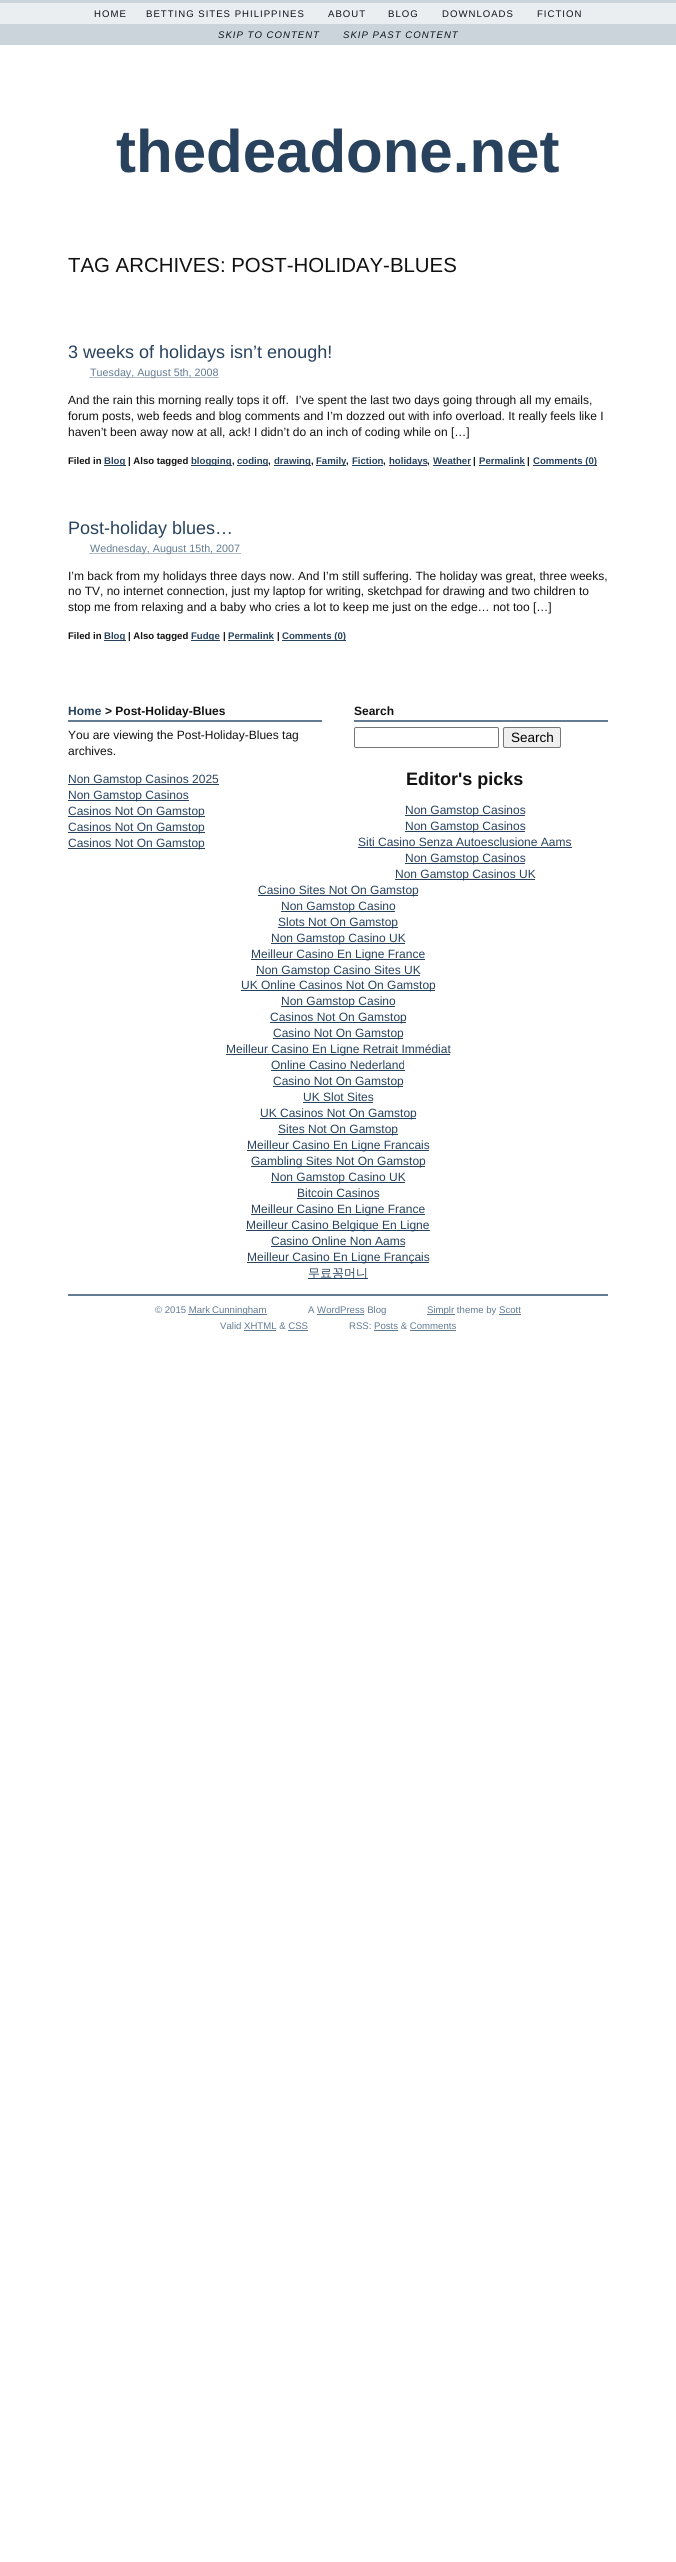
#include <cairo.h>
#include <math.h>
#include <stddef.h>

typedef struct { double x, y; const char *s; } line_t;

static void ink(cairo_t *ctx, unsigned color) {
    cairo_set_source_rgb(ctx, (color >> 16) / 255.0, (color >> 8 & 255) / 255.0, (color & 255) / 255.0);
}

static void write_spaced(cairo_t *ctx, double x, double y, const char *s, double letter, double word) {
    cairo_move_to(ctx, x, y);
    while (*s) {
        char ch[5] = {0};
        int n = 0;
        do ch[n++] = *s++; while ((*s & 0xC0) == 0x80);
        cairo_show_text(ctx, ch);
        cairo_rel_move_to(ctx, letter + word * (*ch == ' '), 0);
    }
}

static void round_path(cairo_t *ctx, double x, double y, double w, double h, double r) {
    cairo_new_sub_path(ctx);
    cairo_arc(ctx, x + w - r, y + h - r, r, 0, M_PI / 2);
    cairo_arc(ctx, x + r, y + h - r, r, M_PI / 2, M_PI);
    cairo_arc(ctx, x + r, y + r, r, M_PI, 1.5 * M_PI);
    cairo_arc(ctx, x + w - r, y + r, r, 1.5 * M_PI, 2 * M_PI);
    cairo_close_path(ctx);
}

int main(void) {
    cairo_surface_t *surface = cairo_image_surface_create(CAIRO_FORMAT_RGB24, 676, 2562);
    cairo_t *ctx = cairo_create(surface);
    cairo_font_options_t *options = cairo_font_options_create();
    cairo_font_options_set_hint_metrics(options, CAIRO_HINT_METRICS_OFF);
    cairo_font_options_set_hint_style(options, CAIRO_HINT_STYLE_NONE);
    cairo_set_font_options(ctx, options);
    cairo_set_miter_limit(ctx, 4);
    ink(ctx, 0xFFFFFF);
    cairo_paint(ctx);
    ink(ctx, 0xEBEEF1);
    cairo_rectangle(ctx, 0, 3, 676, 21);
    cairo_fill(ctx);
    ink(ctx, 0xCBD3DB);
    cairo_rectangle(ctx, 0, 0, 676, 3);
    cairo_fill(ctx);
    cairo_select_font_face(ctx, "Liberation Sans", CAIRO_FONT_SLANT_NORMAL, CAIRO_FONT_WEIGHT_NORMAL);
    cairo_set_font_size(ctx, 9.6);
    ink(ctx, 0x0C141C);
    {
        static const line_t items[] = {
            {94, 17, "HOME"},
            {146, 17, "BETTING SITES PHILIPPINES"},
            {328, 17, "ABOUT"},
            {388, 17, "BLOG"},
            {442, 17, "DOWNLOADS"},
            {537, 17, "FICTION"},
        };
        for (size_t i = 0; i < sizeof items / sizeof *items; i++) {
            write_spaced(ctx, items[i].x, items[i].y, items[i].s, 1, 0);
        }
    }
    ink(ctx, 0xCBD3DB);
    cairo_rectangle(ctx, 0, 24, 676, 21);
    cairo_fill(ctx);
    cairo_select_font_face(ctx, "Liberation Sans", CAIRO_FONT_SLANT_ITALIC, CAIRO_FONT_WEIGHT_NORMAL);
    ink(ctx, 0x0C141C);
    write_spaced(ctx, 218, 38, "SKIP TO CONTENT", 1, 0);
    write_spaced(ctx, 343, 38, "SKIP PAST CONTENT", 1, 0);
    cairo_select_font_face(ctx, "Liberation Sans", CAIRO_FONT_SLANT_NORMAL, CAIRO_FONT_WEIGHT_BOLD);
    cairo_set_font_size(ctx, 60);
    ink(ctx, 0x28425E);
    cairo_move_to(ctx, 116, 172);
    cairo_show_text(ctx, "thedeadone.net");
    cairo_select_font_face(ctx, "Liberation Sans", CAIRO_FONT_SLANT_NORMAL, CAIRO_FONT_WEIGHT_NORMAL);
    cairo_set_font_size(ctx, 20.4);
    ink(ctx, 0x111111);
    cairo_move_to(ctx, 68, 272);
    cairo_show_text(ctx, "TAG ARCHIVES: POST-HOLIDAY-BLUES");
    cairo_set_font_size(ctx, 18);
    ink(ctx, 0x28425E);
    cairo_move_to(ctx, 68, 358);
    cairo_show_text(ctx, "3 weeks of holidays isn’t enough!");
    cairo_new_path(ctx);
    cairo_move_to(ctx, 89.5, 377.5);
    cairo_line_to(ctx, 218.5, 377.5);
    ink(ctx, 0x637B93);
    cairo_set_line_width(ctx, 1);
    cairo_set_dash(ctx, (double[]){1, 1}, 2, 0);
    cairo_stroke(ctx);
    cairo_set_font_size(ctx, 10.75);
    cairo_move_to(ctx, 90, 376);
    cairo_show_text(ctx, "Tuesday, August 5th, 2008");
    cairo_set_font_size(ctx, 12);
    ink(ctx, 0x111111);
    {
        static const line_t items[] = {
            {68, 404, "And the rain this morning really tops it off.  I’ve spent the last two days going through all my emails,"},
            {68, 420, "forum posts, web feeds and blog comments and I’m dozzed out with info overload. It really feels like I"},
            {68, 436, "haven’t been away now at all, ack! I didn’t do an inch of coding while on […]"},
        };
        for (size_t i = 0; i < sizeof items / sizeof *items; i++) {
            cairo_move_to(ctx, items[i].x, items[i].y);
            cairo_show_text(ctx, items[i].s);
        }
    }
    cairo_select_font_face(ctx, "Liberation Sans", CAIRO_FONT_SLANT_NORMAL, CAIRO_FONT_WEIGHT_BOLD);
    cairo_set_font_size(ctx, 9.6);
    cairo_move_to(ctx, 68, 464);
    cairo_show_text(ctx, "Filed in");
    ink(ctx, 0x28425E);
    cairo_rectangle(ctx, 104, 465, 22, 1);
    cairo_fill(ctx);
    cairo_move_to(ctx, 104, 464);
    cairo_show_text(ctx, "Blog");
    ink(ctx, 0x111111);
    cairo_move_to(ctx, 128, 464);
    cairo_show_text(ctx, "| Also tagged");
    ink(ctx, 0x28425E);
    cairo_rectangle(ctx, 191, 465, 41, 1);
    cairo_fill(ctx);
    cairo_move_to(ctx, 191, 464);
    cairo_show_text(ctx, "blogging");
    ink(ctx, 0x111111);
    cairo_move_to(ctx, 232, 464);
    cairo_show_text(ctx, ",");
    ink(ctx, 0x28425E);
    cairo_rectangle(ctx, 237, 465, 31, 1);
    cairo_fill(ctx);
    cairo_move_to(ctx, 237, 464);
    cairo_show_text(ctx, "coding");
    ink(ctx, 0x111111);
    cairo_move_to(ctx, 268, 464);
    cairo_show_text(ctx, ",");
    ink(ctx, 0x28425E);
    cairo_rectangle(ctx, 274, 465, 37, 1);
    cairo_fill(ctx);
    cairo_move_to(ctx, 274, 464);
    cairo_show_text(ctx, "drawing");
    ink(ctx, 0x111111);
    cairo_move_to(ctx, 311, 464);
    cairo_show_text(ctx, ",");
    ink(ctx, 0x28425E);
    cairo_rectangle(ctx, 316, 465, 30, 1);
    cairo_fill(ctx);
    cairo_move_to(ctx, 316, 464);
    cairo_show_text(ctx, "Family");
    ink(ctx, 0x111111);
    cairo_move_to(ctx, 346, 464);
    cairo_show_text(ctx, ",");
    ink(ctx, 0x28425E);
    cairo_move_to(ctx, 352, 464);
    cairo_show_text(ctx, "Fiction");
    ink(ctx, 0x111111);
    cairo_move_to(ctx, 383, 464);
    cairo_show_text(ctx, ",");
    ink(ctx, 0x28425E);
    cairo_rectangle(ctx, 352, 465, 31, 1);
    cairo_fill(ctx);
    cairo_rectangle(ctx, 389, 465, 38, 1);
    cairo_fill(ctx);
    cairo_move_to(ctx, 389, 464);
    cairo_show_text(ctx, "holidays");
    ink(ctx, 0x111111);
    cairo_move_to(ctx, 427, 464);
    cairo_show_text(ctx, ",");
    ink(ctx, 0x28425E);
    cairo_rectangle(ctx, 433, 465, 38, 1);
    cairo_fill(ctx);
    cairo_move_to(ctx, 433, 464);
    cairo_show_text(ctx, "Weather");
    ink(ctx, 0x111111);
    cairo_move_to(ctx, 473, 464);
    cairo_show_text(ctx, "|");
    ink(ctx, 0x28425E);
    cairo_move_to(ctx, 479, 464);
    cairo_show_text(ctx, "Permalink");
    cairo_rectangle(ctx, 479, 465, 46, 1);
    cairo_fill(ctx);
    ink(ctx, 0x111111);
    cairo_move_to(ctx, 527, 464);
    cairo_show_text(ctx, "|");
    ink(ctx, 0x28425E);
    cairo_rectangle(ctx, 533, 465, 64, 1);
    cairo_fill(ctx);
    cairo_move_to(ctx, 533, 464);
    cairo_show_text(ctx, "Comments (0)");
    cairo_select_font_face(ctx, "Liberation Sans", CAIRO_FONT_SLANT_NORMAL, CAIRO_FONT_WEIGHT_NORMAL);
    cairo_set_font_size(ctx, 18);
    cairo_move_to(ctx, 68, 534);
    cairo_show_text(ctx, "Post-holiday blues…");
    cairo_new_path(ctx);
    cairo_move_to(ctx, 89.5, 553.5);
    cairo_line_to(ctx, 240.5, 553.5);
    ink(ctx, 0x637B93);
    cairo_stroke(ctx);
    cairo_set_font_size(ctx, 10.75);
    cairo_move_to(ctx, 90, 552);
    cairo_show_text(ctx, "Wednesday, August 15th, 2007");
    cairo_set_font_size(ctx, 12);
    ink(ctx, 0x111111);
    {
        static const line_t items[] = {
            {68, 580, "I’m back from my holidays three days now. And I’m still suffering. The holiday was great, three weeks,"},
            {68, 595, "no TV, no internet connection, just my laptop for writing, sketchpad for drawing and two children to"},
            {68, 611, "stop me from relaxing and a baby who cries a lot to keep me just on the edge… not too […]"},
        };
        for (size_t i = 0; i < sizeof items / sizeof *items; i++) {
            cairo_move_to(ctx, items[i].x, items[i].y);
            cairo_show_text(ctx, items[i].s);
        }
    }
    cairo_select_font_face(ctx, "Liberation Sans", CAIRO_FONT_SLANT_NORMAL, CAIRO_FONT_WEIGHT_BOLD);
    cairo_set_font_size(ctx, 9.6);
    cairo_move_to(ctx, 68, 639);
    cairo_show_text(ctx, "Filed in");
    ink(ctx, 0x28425E);
    cairo_rectangle(ctx, 104, 640, 22, 1);
    cairo_fill(ctx);
    cairo_move_to(ctx, 104, 639);
    cairo_show_text(ctx, "Blog");
    ink(ctx, 0x111111);
    cairo_move_to(ctx, 128, 639);
    cairo_show_text(ctx, "| Also tagged");
    ink(ctx, 0x28425E);
    cairo_rectangle(ctx, 191, 640, 29, 1);
    cairo_fill(ctx);
    cairo_move_to(ctx, 191, 639);
    cairo_show_text(ctx, "Fudge");
    ink(ctx, 0x111111);
    cairo_move_to(ctx, 223, 639);
    cairo_show_text(ctx, "|");
    ink(ctx, 0x28425E);
    cairo_move_to(ctx, 228, 639);
    cairo_show_text(ctx, "Permalink");
    cairo_rectangle(ctx, 228, 640, 46, 1);
    cairo_fill(ctx);
    ink(ctx, 0x111111);
    cairo_move_to(ctx, 277, 639);
    cairo_show_text(ctx, "|");
    ink(ctx, 0x28425E);
    cairo_rectangle(ctx, 282, 640, 64, 1);
    cairo_fill(ctx);
    cairo_move_to(ctx, 282, 639);
    cairo_show_text(ctx, "Comments (0)");
    ink(ctx, 0x637B93);
    cairo_rectangle(ctx, 68, 720, 254, 2);
    cairo_fill(ctx);
    cairo_set_font_size(ctx, 12);
    ink(ctx, 0x28425E);
    cairo_move_to(ctx, 68, 715);
    cairo_show_text(ctx, "Home");
    ink(ctx, 0x111111);
    cairo_move_to(ctx, 105, 715);
    cairo_show_text(ctx, "> Post-Holiday-Blues");
    cairo_select_font_face(ctx, "Liberation Sans", CAIRO_FONT_SLANT_NORMAL, CAIRO_FONT_WEIGHT_NORMAL);
    cairo_move_to(ctx, 68, 739);
    cairo_show_text(ctx, "You are viewing the Post-Holiday-Blues tag");
    cairo_move_to(ctx, 68, 755);
    cairo_show_text(ctx, "archives.");
    ink(ctx, 0x28425E);
    cairo_rectangle(ctx, 68, 784, 151, 1);
    cairo_fill(ctx);
    cairo_move_to(ctx, 68, 783);
    cairo_show_text(ctx, "Non Gamstop Casinos 2025");
    cairo_rectangle(ctx, 68, 800, 121, 1);
    cairo_fill(ctx);
    cairo_move_to(ctx, 68, 799);
    cairo_show_text(ctx, "Non Gamstop Casinos");
    cairo_rectangle(ctx, 68, 816, 137, 1);
    cairo_fill(ctx);
    cairo_move_to(ctx, 68, 815);
    cairo_show_text(ctx, "Casinos Not On Gamstop");
    cairo_rectangle(ctx, 68, 832, 137, 1);
    cairo_fill(ctx);
    cairo_move_to(ctx, 68, 831);
    cairo_show_text(ctx, "Casinos Not On Gamstop");
    cairo_rectangle(ctx, 68, 848, 137, 1);
    cairo_fill(ctx);
    cairo_move_to(ctx, 68, 847);
    cairo_show_text(ctx, "Casinos Not On Gamstop");
    ink(ctx, 0x637B93);
    cairo_rectangle(ctx, 354, 720, 254, 2);
    cairo_fill(ctx);
    cairo_select_font_face(ctx, "Liberation Sans", CAIRO_FONT_SLANT_NORMAL, CAIRO_FONT_WEIGHT_BOLD);
    ink(ctx, 0x111111);
    cairo_move_to(ctx, 354, 715);
    cairo_show_text(ctx, "Search");
    round_path(ctx, 354.5, 727.5, 144, 20, 1.5);
    ink(ctx, 0x767676);
    cairo_set_dash(ctx, NULL, 0, 0);
    cairo_stroke(ctx);
    ink(ctx, 0xEFEFEF);
    round_path(ctx, 503.5, 727.5, 57, 20, 1.5);
    cairo_fill_preserve(ctx);
    ink(ctx, 0x767676);
    cairo_stroke(ctx);
    cairo_select_font_face(ctx, "Liberation Sans", CAIRO_FONT_SLANT_NORMAL, CAIRO_FONT_WEIGHT_NORMAL);
    cairo_set_font_size(ctx, 13.5);
    ink(ctx, 0x000000);
    cairo_move_to(ctx, 511, 742);
    cairo_show_text(ctx, "Search");
    cairo_select_font_face(ctx, "Liberation Sans", CAIRO_FONT_SLANT_NORMAL, CAIRO_FONT_WEIGHT_BOLD);
    cairo_set_font_size(ctx, 18);
    ink(ctx, 0x111111);
    cairo_move_to(ctx, 406, 785);
    cairo_show_text(ctx, "Editor's picks");
    ink(ctx, 0x28425E);
    cairo_rectangle(ctx, 405, 815, 120, 1);
    cairo_fill(ctx);
    cairo_select_font_face(ctx, "Liberation Sans", CAIRO_FONT_SLANT_NORMAL, CAIRO_FONT_WEIGHT_NORMAL);
    cairo_set_font_size(ctx, 12);
    cairo_move_to(ctx, 405, 814);
    cairo_show_text(ctx, "Non Gamstop Casinos");
    cairo_rectangle(ctx, 405, 831, 120, 1);
    cairo_fill(ctx);
    cairo_move_to(ctx, 405, 830);
    cairo_show_text(ctx, "Non Gamstop Casinos");
    cairo_move_to(ctx, 358, 846);
    cairo_show_text(ctx, "Siti Casino Senza Autoesclusione Aams");
    cairo_rectangle(ctx, 358, 847, 214, 1);
    cairo_fill(ctx);
    cairo_rectangle(ctx, 405, 863, 120, 1);
    cairo_fill(ctx);
    cairo_move_to(ctx, 405, 862);
    cairo_show_text(ctx, "Non Gamstop Casinos");
    cairo_rectangle(ctx, 395, 879, 140, 1);
    cairo_fill(ctx);
    cairo_move_to(ctx, 395, 878);
    cairo_show_text(ctx, "Non Gamstop Casinos UK");
    cairo_rectangle(ctx, 258, 895, 160, 1);
    cairo_fill(ctx);
    cairo_move_to(ctx, 258, 894);
    cairo_show_text(ctx, "Casino Sites Not On Gamstop");
    cairo_rectangle(ctx, 281, 911, 114, 1);
    cairo_fill(ctx);
    cairo_move_to(ctx, 281, 910);
    cairo_show_text(ctx, "Non Gamstop Casino");
    cairo_rectangle(ctx, 278, 927, 120, 1);
    cairo_fill(ctx);
    cairo_move_to(ctx, 278, 926);
    cairo_show_text(ctx, "Slots Not On Gamstop");
    cairo_rectangle(ctx, 271, 943, 134, 1);
    cairo_fill(ctx);
    cairo_move_to(ctx, 271, 942);
    cairo_show_text(ctx, "Non Gamstop Casino UK");
    cairo_rectangle(ctx, 251, 959, 174, 1);
    cairo_fill(ctx);
    cairo_move_to(ctx, 251, 958);
    cairo_show_text(ctx, "Meilleur Casino En Ligne France");
    cairo_rectangle(ctx, 256, 975, 164, 1);
    cairo_fill(ctx);
    cairo_move_to(ctx, 256, 974);
    cairo_show_text(ctx, "Non Gamstop Casino Sites UK");
    cairo_rectangle(ctx, 241, 990, 194, 1);
    cairo_fill(ctx);
    cairo_move_to(ctx, 241, 989);
    cairo_show_text(ctx, "UK Online Casinos Not On Gamstop");
    cairo_rectangle(ctx, 281, 1006, 114, 1);
    cairo_fill(ctx);
    cairo_move_to(ctx, 281, 1005);
    cairo_show_text(ctx, "Non Gamstop Casino");
    cairo_rectangle(ctx, 270, 1022, 136, 1);
    cairo_fill(ctx);
    cairo_move_to(ctx, 270, 1021);
    cairo_show_text(ctx, "Casinos Not On Gamstop");
    cairo_rectangle(ctx, 273, 1038, 130, 1);
    cairo_fill(ctx);
    cairo_move_to(ctx, 273, 1037);
    cairo_show_text(ctx, "Casino Not On Gamstop");
    cairo_rectangle(ctx, 226, 1054, 224, 1);
    cairo_fill(ctx);
    cairo_move_to(ctx, 226, 1053);
    cairo_show_text(ctx, "Meilleur Casino En Ligne Retrait Immédiat");
    cairo_move_to(ctx, 271, 1069);
    cairo_show_text(ctx, "Online Casino Nederland");
    cairo_rectangle(ctx, 271, 1070, 134, 1);
    cairo_fill(ctx);
    cairo_rectangle(ctx, 273, 1086, 130, 1);
    cairo_fill(ctx);
    cairo_move_to(ctx, 273, 1085);
    cairo_show_text(ctx, "Casino Not On Gamstop");
    cairo_move_to(ctx, 303, 1101);
    cairo_show_text(ctx, "UK Slot Sites");
    cairo_rectangle(ctx, 303, 1102, 70, 1);
    cairo_fill(ctx);
    cairo_rectangle(ctx, 260, 1118, 156, 1);
    cairo_fill(ctx);
    cairo_move_to(ctx, 260, 1117);
    cairo_show_text(ctx, "UK Casinos Not On Gamstop");
    cairo_rectangle(ctx, 278, 1134, 120, 1);
    cairo_fill(ctx);
    cairo_move_to(ctx, 278, 1133);
    cairo_show_text(ctx, "Sites Not On Gamstop");
    cairo_rectangle(ctx, 247, 1150, 182, 1);
    cairo_fill(ctx);
    cairo_move_to(ctx, 247, 1149);
    cairo_show_text(ctx, "Meilleur Casino En Ligne Francais");
    cairo_rectangle(ctx, 251, 1166, 174, 1);
    cairo_fill(ctx);
    cairo_move_to(ctx, 251, 1165);
    cairo_show_text(ctx, "Gambling Sites Not On Gamstop");
    cairo_rectangle(ctx, 271, 1182, 134, 1);
    cairo_fill(ctx);
    cairo_move_to(ctx, 271, 1181);
    cairo_show_text(ctx, "Non Gamstop Casino UK");
    cairo_move_to(ctx, 297, 1197);
    cairo_show_text(ctx, "Bitcoin Casinos");
    cairo_rectangle(ctx, 297, 1198, 82, 1);
    cairo_fill(ctx);
    cairo_rectangle(ctx, 251, 1214, 174, 1);
    cairo_fill(ctx);
    cairo_move_to(ctx, 251, 1213);
    cairo_show_text(ctx, "Meilleur Casino En Ligne France");
    cairo_rectangle(ctx, 246, 1230, 184, 1);
    cairo_fill(ctx);
    cairo_move_to(ctx, 246, 1229);
    cairo_show_text(ctx, "Meilleur Casino Belgique En Ligne");
    cairo_move_to(ctx, 271, 1245);
    cairo_show_text(ctx, "Casino Online Non Aams");
    cairo_rectangle(ctx, 271, 1246, 134, 1);
    cairo_fill(ctx);
    cairo_rectangle(ctx, 247, 1262, 182, 1);
    cairo_fill(ctx);
    cairo_move_to(ctx, 247, 1261);
    cairo_show_text(ctx, "Meilleur Casino En Ligne Français");
    cairo_rectangle(ctx, 308, 1278, 60, 1);
    cairo_fill(ctx);
    cairo_select_font_face(ctx, "WenQuanYi Zen Hei Medium", CAIRO_FONT_SLANT_NORMAL, CAIRO_FONT_WEIGHT_NORMAL);
    cairo_move_to(ctx, 308, 1277);
    cairo_show_text(ctx, "무료꽁머니");
    ink(ctx, 0x637B93);
    cairo_rectangle(ctx, 68, 1294, 540, 2);
    cairo_fill(ctx);
    cairo_select_font_face(ctx, "Liberation Sans", CAIRO_FONT_SLANT_NORMAL, CAIRO_FONT_WEIGHT_NORMAL);
    cairo_set_font_size(ctx, 9.6);
    cairo_move_to(ctx, 155, 1313);
    cairo_show_text(ctx, "© 2015 Mark");
    cairo_rectangle(ctx, 188, 1314, 79, 1);
    cairo_fill(ctx);
    cairo_move_to(ctx, 212, 1313);
    cairo_show_text(ctx, "Cunningham");
    cairo_move_to(ctx, 308, 1313);
    cairo_show_text(ctx, "A WordPress Blog");
    cairo_rectangle(ctx, 317, 1314, 47, 1);
    cairo_fill(ctx);
    cairo_rectangle(ctx, 427, 1314, 28, 1);
    cairo_fill(ctx);
    cairo_move_to(ctx, 427, 1313);
    cairo_show_text(ctx, "Simplr theme by Scott");
    cairo_rectangle(ctx, 499, 1314, 22, 1);
    cairo_fill(ctx);
    cairo_move_to(ctx, 220, 1329);
    cairo_show_text(ctx, "Valid XHTML & CSS");
    cairo_rectangle(ctx, 244, 1330, 32, 1);
    cairo_fill(ctx);
    cairo_rectangle(ctx, 288, 1330, 20, 1);
    cairo_fill(ctx);
    cairo_move_to(ctx, 349, 1329);
    cairo_show_text(ctx, "RSS: Posts & Comments");
    cairo_rectangle(ctx, 374, 1330, 24, 1);
    cairo_fill(ctx);
    cairo_rectangle(ctx, 410, 1330, 46, 1);
    cairo_fill(ctx);
    cairo_surface_write_to_png(surface, "image.png");
    cairo_font_options_destroy(options);
    cairo_destroy(ctx);
    cairo_surface_destroy(surface);
    return 0;
}
